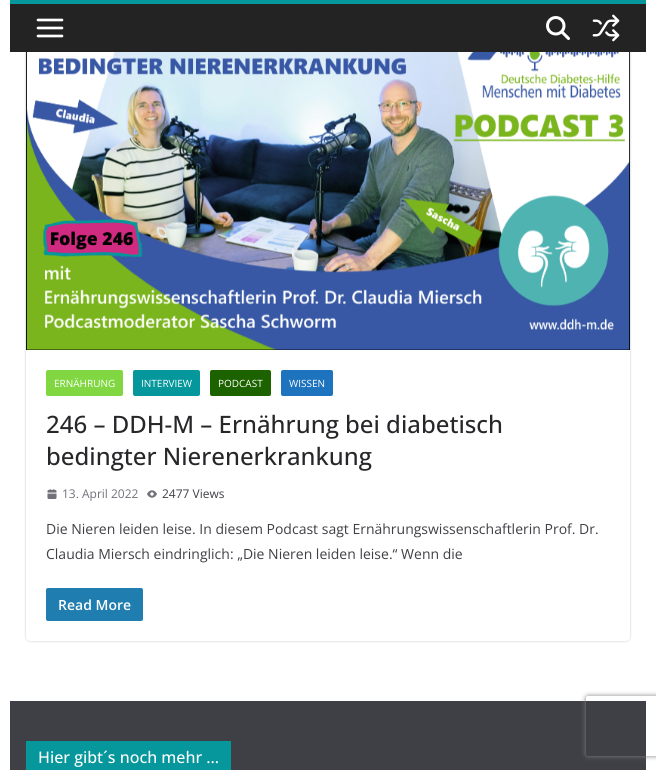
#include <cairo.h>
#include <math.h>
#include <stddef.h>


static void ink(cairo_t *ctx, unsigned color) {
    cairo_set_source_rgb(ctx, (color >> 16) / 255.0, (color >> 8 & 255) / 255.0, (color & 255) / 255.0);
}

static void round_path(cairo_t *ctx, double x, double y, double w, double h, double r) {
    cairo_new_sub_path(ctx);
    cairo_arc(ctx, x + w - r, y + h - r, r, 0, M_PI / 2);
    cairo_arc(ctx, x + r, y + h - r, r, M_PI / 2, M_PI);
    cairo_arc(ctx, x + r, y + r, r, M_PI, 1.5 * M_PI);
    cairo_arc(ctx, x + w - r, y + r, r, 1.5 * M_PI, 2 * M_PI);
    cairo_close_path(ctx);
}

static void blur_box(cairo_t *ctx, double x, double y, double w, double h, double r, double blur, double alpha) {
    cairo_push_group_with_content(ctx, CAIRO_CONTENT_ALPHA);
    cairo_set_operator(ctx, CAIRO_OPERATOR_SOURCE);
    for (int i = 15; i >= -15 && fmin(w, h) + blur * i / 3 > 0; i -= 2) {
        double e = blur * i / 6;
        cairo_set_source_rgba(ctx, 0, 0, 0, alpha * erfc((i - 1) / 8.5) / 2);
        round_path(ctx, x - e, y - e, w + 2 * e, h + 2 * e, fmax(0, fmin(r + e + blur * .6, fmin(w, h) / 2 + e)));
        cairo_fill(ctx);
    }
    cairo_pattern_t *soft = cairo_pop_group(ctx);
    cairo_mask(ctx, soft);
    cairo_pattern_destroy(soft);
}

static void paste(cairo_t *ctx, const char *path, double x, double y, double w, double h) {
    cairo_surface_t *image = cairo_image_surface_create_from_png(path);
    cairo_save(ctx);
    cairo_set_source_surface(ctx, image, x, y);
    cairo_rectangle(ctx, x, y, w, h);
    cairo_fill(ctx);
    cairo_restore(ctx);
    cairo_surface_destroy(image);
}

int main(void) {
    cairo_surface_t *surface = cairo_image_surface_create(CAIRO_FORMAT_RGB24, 656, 770);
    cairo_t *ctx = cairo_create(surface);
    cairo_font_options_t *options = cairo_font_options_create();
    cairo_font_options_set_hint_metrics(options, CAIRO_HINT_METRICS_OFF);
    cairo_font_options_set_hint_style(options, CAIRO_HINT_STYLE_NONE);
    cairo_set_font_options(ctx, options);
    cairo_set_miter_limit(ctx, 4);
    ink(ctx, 0xFFFFFF);
    cairo_paint(ctx);
    cairo_save(ctx);
    cairo_set_fill_rule(ctx, CAIRO_FILL_RULE_EVEN_ODD);
    cairo_new_path(ctx);
    cairo_move_to(ctx, 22, 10);
    cairo_line_to(ctx, 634, 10);
    cairo_line_to(ctx, 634, 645);
    cairo_line_to(ctx, 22, 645);
    cairo_close_path(ctx);
    cairo_move_to(ctx, 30, 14);
    cairo_line_to(ctx, 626, 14);
    cairo_curve_to(ctx, 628, 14, 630, 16, 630, 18);
    cairo_line_to(ctx, 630, 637);
    cairo_curve_to(ctx, 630, 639, 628, 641, 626, 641);
    cairo_line_to(ctx, 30, 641);
    cairo_curve_to(ctx, 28, 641, 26, 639, 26, 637);
    cairo_line_to(ctx, 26, 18);
    cairo_curve_to(ctx, 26, 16, 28, 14, 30, 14);
    cairo_close_path(ctx);
    cairo_clip(ctx);
    ink(ctx, 0x000000);
    blur_box(ctx, 26, 14, 604, 627, 4, 1, 0.24);
    cairo_restore(ctx);
    ink(ctx, 0x232323);
    cairo_rectangle(ctx, 10, 4, 636, 48);
    cairo_fill(ctx);
    ink(ctx, 0x05979B);
    cairo_rectangle(ctx, 10, 0, 636, 4);
    cairo_fill(ctx);
    paste(ctx, "media/1.png", 36, 18, 28, 20);
    paste(ctx, "media/2.png", 546, 16, 24, 24);
    paste(ctx, "media/3.png", 592, 14, 28, 28);
    paste(ctx, "media/4.png", 26, 52, 604, 298);
    ink(ctx, 0x81D742);
    round_path(ctx, 46, 370, 77, 26, 2);
    cairo_fill(ctx);
    cairo_select_font_face(ctx, "Open Sans", CAIRO_FONT_SLANT_NORMAL, CAIRO_FONT_WEIGHT_NORMAL);
    cairo_set_font_size(ctx, 10);
    ink(ctx, 0xFFFFFF);
    cairo_move_to(ctx, 54, 387);
    cairo_show_text(ctx, "ERNÄHRUNG");
    ink(ctx, 0x05979B);
    round_path(ctx, 133, 370, 67, 26, 2);
    cairo_fill(ctx);
    ink(ctx, 0xFFFFFF);
    cairo_move_to(ctx, 141, 387);
    cairo_show_text(ctx, "INTERVIEW");
    ink(ctx, 0x1C6300);
    round_path(ctx, 210, 370, 61, 26, 2);
    cairo_fill(ctx);
    ink(ctx, 0xFFFFFF);
    cairo_move_to(ctx, 218, 387);
    cairo_show_text(ctx, "PODCAST");
    ink(ctx, 0x1E73BE);
    round_path(ctx, 281, 370, 52, 26, 2);
    cairo_fill(ctx);
    ink(ctx, 0xFFFFFF);
    cairo_move_to(ctx, 289, 387);
    cairo_show_text(ctx, "WISSEN");
    cairo_select_font_face(ctx, "Open Sans Medium", CAIRO_FONT_SLANT_NORMAL, CAIRO_FONT_WEIGHT_NORMAL);
    cairo_set_font_size(ctx, 24);
    ink(ctx, 0x27272A);
    cairo_move_to(ctx, 46, 433);
    cairo_show_text(ctx, "246 – DDH-M – Ernährung bei diabetisch");
    cairo_move_to(ctx, 46, 465);
    cairo_show_text(ctx, "bedingter Nierenerkrankung");
    paste(ctx, "media/5.png", 47, 489, 10, 10);
    cairo_select_font_face(ctx, "Open Sans", CAIRO_FONT_SLANT_NORMAL, CAIRO_FONT_WEIGHT_NORMAL);
    cairo_set_font_size(ctx, 12);
    ink(ctx, 0x71717A);
    cairo_move_to(ctx, 62, 498);
    cairo_show_text(ctx, "13. April 2022");
    paste(ctx, "media/6.png", 147, 490, 10, 8);
    ink(ctx, 0x3F3F46);
    cairo_move_to(ctx, 162, 498);
    cairo_show_text(ctx, "2477 Views");
    cairo_set_font_size(ctx, 14);
    cairo_move_to(ctx, 46, 534);
    cairo_show_text(ctx, "Die Nieren leiden leise. In diesem Podcast sagt Ernährungswissenschaftlerin Prof. Dr.");
    cairo_move_to(ctx, 46, 559);
    cairo_show_text(ctx, "Claudia Miersch eindringlich: „Die Nieren leiden leise.“ Wenn die");
    ink(ctx, 0x207DAF);
    round_path(ctx, 46, 588, 97, 33, 2);
    cairo_fill(ctx);
    cairo_select_font_face(ctx, "Open Sans SemiBold", CAIRO_FONT_SLANT_NORMAL, CAIRO_FONT_WEIGHT_NORMAL);
    ink(ctx, 0xFFFFFF);
    cairo_move_to(ctx, 58, 610);
    cairo_show_text(ctx, "Read More");
    ink(ctx, 0x3F3F46);
    cairo_rectangle(ctx, 10, 701, 636, 69);
    cairo_fill(ctx);
    ink(ctx, 0x05979B);
    cairo_rectangle(ctx, 26, 741, 205, 29);
    cairo_fill(ctx);
    cairo_select_font_face(ctx, "Open Sans Medium", CAIRO_FONT_SLANT_NORMAL, CAIRO_FONT_WEIGHT_NORMAL);
    cairo_set_font_size(ctx, 16);
    ink(ctx, 0xFFFFFF);
    cairo_move_to(ctx, 38, 763);
    cairo_show_text(ctx, "Hier gibt´s noch mehr …");
    cairo_save(ctx);
    cairo_set_fill_rule(ctx, CAIRO_FILL_RULE_EVEN_ODD);
    cairo_new_path(ctx);
    cairo_move_to(ctx, 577, 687);
    cairo_line_to(ctx, 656, 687);
    cairo_line_to(ctx, 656, 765);
    cairo_line_to(ctx, 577, 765);
    cairo_close_path(ctx);
    cairo_move_to(ctx, 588, 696);
    cairo_line_to(ctx, 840, 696);
    cairo_curve_to(ctx, 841, 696, 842, 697, 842, 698);
    cairo_line_to(ctx, 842, 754);
    cairo_curve_to(ctx, 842, 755, 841, 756, 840, 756);
    cairo_line_to(ctx, 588, 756);
    cairo_curve_to(ctx, 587, 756, 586, 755, 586, 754);
    cairo_line_to(ctx, 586, 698);
    cairo_curve_to(ctx, 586, 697, 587, 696, 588, 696);
    cairo_close_path(ctx);
    cairo_clip(ctx);
    ink(ctx, 0x808080);
    blur_box(ctx, 586, 696, 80, 60, 2, 2.5, 1);
    cairo_restore(ctx);
    cairo_surface_write_to_png(surface, "image.png");
    cairo_font_options_destroy(options);
    cairo_destroy(ctx);
    cairo_surface_destroy(surface);
    return 0;
}
